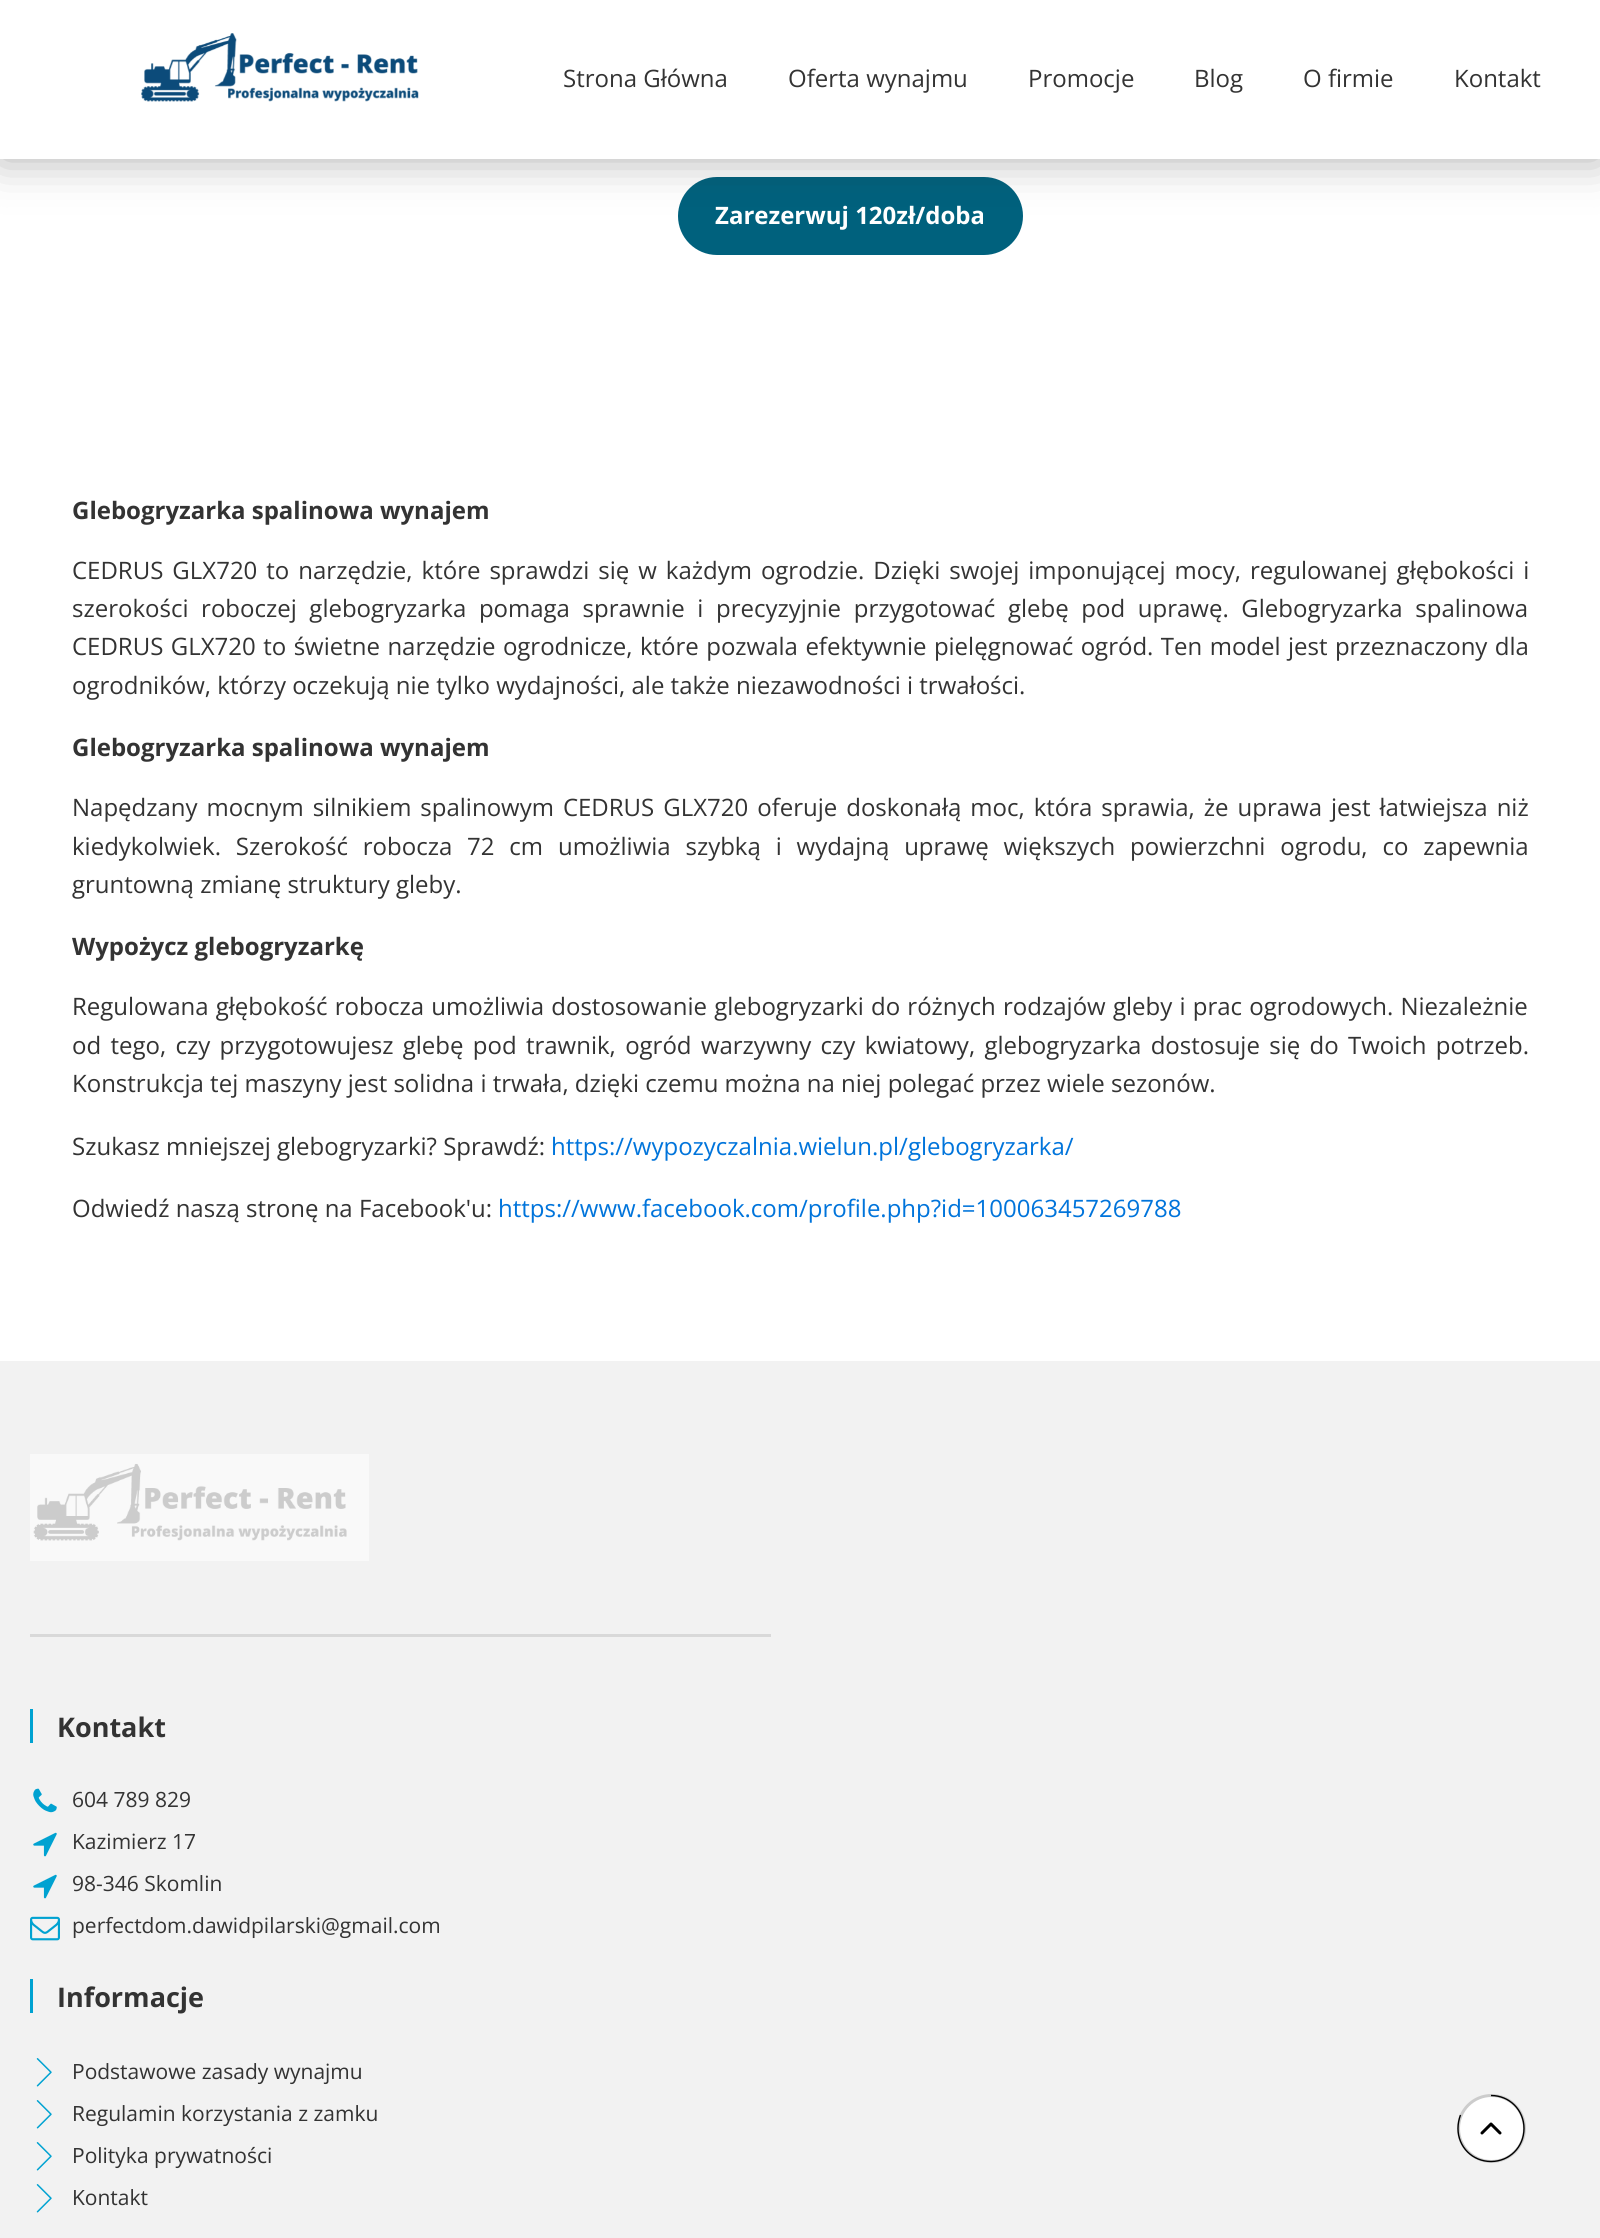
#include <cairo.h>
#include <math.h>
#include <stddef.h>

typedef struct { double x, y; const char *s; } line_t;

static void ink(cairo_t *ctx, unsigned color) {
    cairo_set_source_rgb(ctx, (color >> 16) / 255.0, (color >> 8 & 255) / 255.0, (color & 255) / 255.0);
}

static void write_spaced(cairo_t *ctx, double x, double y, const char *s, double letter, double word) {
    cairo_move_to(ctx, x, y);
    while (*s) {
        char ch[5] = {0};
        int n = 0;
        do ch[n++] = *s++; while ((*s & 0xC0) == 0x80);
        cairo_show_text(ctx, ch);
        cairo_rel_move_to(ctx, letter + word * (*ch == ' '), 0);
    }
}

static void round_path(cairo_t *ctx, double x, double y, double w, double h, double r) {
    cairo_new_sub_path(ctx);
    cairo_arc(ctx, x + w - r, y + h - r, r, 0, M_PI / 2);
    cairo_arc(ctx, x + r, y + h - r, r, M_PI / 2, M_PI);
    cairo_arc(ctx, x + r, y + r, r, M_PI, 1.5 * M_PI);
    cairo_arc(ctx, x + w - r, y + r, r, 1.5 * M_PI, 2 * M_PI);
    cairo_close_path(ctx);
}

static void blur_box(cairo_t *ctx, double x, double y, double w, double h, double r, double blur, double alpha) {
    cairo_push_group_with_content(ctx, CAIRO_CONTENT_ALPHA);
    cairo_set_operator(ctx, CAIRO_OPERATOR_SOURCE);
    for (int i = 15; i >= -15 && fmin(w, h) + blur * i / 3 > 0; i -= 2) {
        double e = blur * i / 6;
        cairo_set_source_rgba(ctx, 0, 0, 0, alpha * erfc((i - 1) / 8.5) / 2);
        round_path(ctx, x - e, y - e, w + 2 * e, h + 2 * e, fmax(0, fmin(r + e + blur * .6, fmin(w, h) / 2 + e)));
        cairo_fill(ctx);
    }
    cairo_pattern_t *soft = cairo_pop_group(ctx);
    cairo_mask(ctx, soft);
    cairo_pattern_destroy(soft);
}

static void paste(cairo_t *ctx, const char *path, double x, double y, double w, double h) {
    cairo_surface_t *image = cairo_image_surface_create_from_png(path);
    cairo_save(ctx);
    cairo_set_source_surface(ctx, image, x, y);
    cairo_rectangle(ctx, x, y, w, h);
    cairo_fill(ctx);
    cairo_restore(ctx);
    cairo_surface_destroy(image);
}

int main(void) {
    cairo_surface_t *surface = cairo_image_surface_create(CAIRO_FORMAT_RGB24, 1600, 2238);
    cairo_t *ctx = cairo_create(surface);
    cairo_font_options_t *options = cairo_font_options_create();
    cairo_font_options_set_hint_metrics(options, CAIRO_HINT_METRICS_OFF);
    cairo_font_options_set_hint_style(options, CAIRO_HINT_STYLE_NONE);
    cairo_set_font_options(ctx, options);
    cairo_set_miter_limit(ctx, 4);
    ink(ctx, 0xFFFFFF);
    cairo_paint(ctx);
    ink(ctx, 0x00617D);
    round_path(ctx, 679, 178, 343, 76, 38);
    cairo_fill_preserve(ctx);
    cairo_stroke(ctx);
    ink(ctx, 0x333333);
    blur_box(ctx, 0, 0, 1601, 159, 0, 22.5, 0.4);
    ink(ctx, 0xFFFFFF);
    cairo_rectangle(ctx, 0, 0, 1600, 159);
    cairo_fill(ctx);
    paste(ctx, "media/1.png", 141, 33, 278, 69);
    cairo_select_font_face(ctx, "Open Sans", CAIRO_FONT_SLANT_NORMAL, CAIRO_FONT_WEIGHT_NORMAL);
    cairo_set_font_size(ctx, 24);
    ink(ctx, 0x333333);
    {
        static const line_t items[] = {
            {563, 87, "Strona Główna"},
            {788, 87, "Oferta wynajmu"},
            {1028, 87, "Promocje"},
            {1194, 87, "Blog"},
            {1303, 87, "O firmie"},
            {1454, 87, "Kontakt"},
        };
        for (size_t i = 0; i < sizeof items / sizeof *items; i++) {
            cairo_move_to(ctx, items[i].x, items[i].y);
            cairo_show_text(ctx, items[i].s);
        }
    }
    cairo_select_font_face(ctx, "Open Sans", CAIRO_FONT_SLANT_NORMAL, CAIRO_FONT_WEIGHT_BOLD);
    ink(ctx, 0xFFFFFF);
    cairo_move_to(ctx, 715, 224);
    cairo_show_text(ctx, "Zarezerwuj 120zł/doba");
    ink(ctx, 0x333333);
    cairo_move_to(ctx, 72, 519);
    cairo_show_text(ctx, "Glebogryzarka spalinowa wynajem");
    cairo_select_font_face(ctx, "Open Sans", CAIRO_FONT_SLANT_NORMAL, CAIRO_FONT_WEIGHT_NORMAL);
    write_spaced(ctx, 72, 579, "CEDRUS GLX720 to narzędzie, które sprawdzi się w każdym ogrodzie. Dzięki swojej imponującej mocy, regulowanej głębokości i", 0, 2.75);
    write_spaced(ctx, 72, 617, "szerokości roboczej glebogryzarka pomaga sprawnie i precyzyjnie przygotować glebę pod uprawę. Glebogryzarka spalinowa", 0, 6.4);
    write_spaced(ctx, 72, 655, "CEDRUS GLX720 to świetne narzędzie ogrodnicze, które pozwala efektywnie pielęgnować ogród. Ten model jest przeznaczony dla", 0, 1.2);
    cairo_move_to(ctx, 72, 694);
    cairo_show_text(ctx, "ogrodników, którzy oczekują nie tylko wydajności, ale także niezawodności i trwałości.");
    cairo_select_font_face(ctx, "Open Sans", CAIRO_FONT_SLANT_NORMAL, CAIRO_FONT_WEIGHT_BOLD);
    cairo_move_to(ctx, 72, 756);
    cairo_show_text(ctx, "Glebogryzarka spalinowa wynajem");
    cairo_select_font_face(ctx, "Open Sans", CAIRO_FONT_SLANT_NORMAL, CAIRO_FONT_WEIGHT_NORMAL);
    write_spaced(ctx, 72, 816, "Napędzany mocnym silnikiem spalinowym CEDRUS GLX720 oferuje doskonałą moc, która sprawia, że uprawa jest łatwiejsza niż", 0, 2.75);
    write_spaced(ctx, 72, 855, "kiedykolwiek. Szerokość robocza 72 cm umożliwia szybką i wydajną uprawę większych powierzchni ogrodu, co zapewnia", 0, 8.6);
    cairo_move_to(ctx, 72, 893);
    cairo_show_text(ctx, "gruntowną zmianę struktury gleby.");
    cairo_select_font_face(ctx, "Open Sans", CAIRO_FONT_SLANT_NORMAL, CAIRO_FONT_WEIGHT_BOLD);
    cairo_move_to(ctx, 72, 955);
    cairo_show_text(ctx, "Wypożycz glebogryzarkę");
    cairo_select_font_face(ctx, "Open Sans", CAIRO_FONT_SLANT_NORMAL, CAIRO_FONT_WEIGHT_NORMAL);
    write_spaced(ctx, 72, 1015, "Regulowana głębokość robocza umożliwia dostosowanie glebogryzarki do różnych rodzajów gleby i prac ogrodowych. Niezależnie", 0, 1);
    write_spaced(ctx, 72, 1054, "od tego, czy przygotowujesz glebę pod trawnik, ogród warzywny czy kwiatowy, glebogryzarka dostosuje się do Twoich potrzeb.", 0, 3.1);
    cairo_move_to(ctx, 72, 1092);
    cairo_show_text(ctx, "Konstrukcja tej maszyny jest solidna i trwała, dzięki czemu można na niej polegać przez wiele sezonów.");
    cairo_move_to(ctx, 72, 1155);
    cairo_show_text(ctx, "Szukasz mniejszej glebogryzarki? Sprawdź:");
    ink(ctx, 0x0074DB);
    cairo_move_to(ctx, 551, 1155);
    cairo_show_text(ctx, "https://wypozyczalnia.wielun.pl/glebogryzarka/");
    ink(ctx, 0x333333);
    cairo_move_to(ctx, 72, 1217);
    cairo_show_text(ctx, "Odwiedź naszą stronę na Facebook'u:");
    ink(ctx, 0x0074DB);
    cairo_move_to(ctx, 498, 1217);
    cairo_show_text(ctx, "https://www.facebook.com/profile.php?id=100063457269788");
    ink(ctx, 0xF2F2F2);
    cairo_rectangle(ctx, 0, 1361, 1600, 877);
    cairo_fill(ctx);
    paste(ctx, "media/2.png", 30, 1454, 339, 107);
    ink(ctx, 0xD9D9D9);
    cairo_rectangle(ctx, 30, 1634, 741, 3);
    cairo_fill(ctx);
    ink(ctx, 0x00A2D1);
    cairo_rectangle(ctx, 30, 1709, 3, 34);
    cairo_fill(ctx);
    cairo_select_font_face(ctx, "Open Sans", CAIRO_FONT_SLANT_NORMAL, CAIRO_FONT_WEIGHT_BOLD);
    cairo_set_font_size(ctx, 27);
    ink(ctx, 0x333333);
    cairo_move_to(ctx, 57, 1737);
    cairo_show_text(ctx, "Kontakt");
    paste(ctx, "media/3.png", 33, 1788, 24, 25);
    cairo_select_font_face(ctx, "Open Sans", CAIRO_FONT_SLANT_NORMAL, CAIRO_FONT_WEIGHT_NORMAL);
    cairo_set_font_size(ctx, 21);
    cairo_move_to(ctx, 72, 1807);
    cairo_show_text(ctx, "604 789 829");
    paste(ctx, "media/4.png", 33, 1832, 24, 25);
    cairo_move_to(ctx, 72, 1849);
    cairo_show_text(ctx, "Kazimierz 17");
    paste(ctx, "media/4.png", 33, 1874, 24, 25);
    cairo_move_to(ctx, 72, 1891);
    cairo_show_text(ctx, "98-346 Skomlin");
    paste(ctx, "media/5.png", 30, 1916, 30, 25);
    cairo_move_to(ctx, 72, 1933);
    cairo_show_text(ctx, "perfectdom.dawidpilarski@gmail.com");
    ink(ctx, 0x00A2D1);
    cairo_rectangle(ctx, 30, 1979, 3, 34);
    cairo_fill(ctx);
    cairo_select_font_face(ctx, "Open Sans", CAIRO_FONT_SLANT_NORMAL, CAIRO_FONT_WEIGHT_BOLD);
    cairo_set_font_size(ctx, 27);
    ink(ctx, 0x333333);
    cairo_move_to(ctx, 57, 2007);
    cairo_show_text(ctx, "Informacje");
    paste(ctx, "media/6.png", 36, 2058, 16, 29);
    cairo_select_font_face(ctx, "Open Sans", CAIRO_FONT_SLANT_NORMAL, CAIRO_FONT_WEIGHT_NORMAL);
    cairo_set_font_size(ctx, 21);
    cairo_move_to(ctx, 72, 2079);
    cairo_show_text(ctx, "Podstawowe zasady wynajmu");
    paste(ctx, "media/6.png", 36, 2100, 16, 29);
    cairo_move_to(ctx, 72, 2121);
    cairo_show_text(ctx, "Regulamin korzystania z zamku");
    paste(ctx, "media/6.png", 36, 2142, 16, 29);
    cairo_move_to(ctx, 72, 2163);
    cairo_show_text(ctx, "Polityka prywatności");
    paste(ctx, "media/6.png", 36, 2184, 16, 29);
    cairo_move_to(ctx, 72, 2205);
    cairo_show_text(ctx, "Kontakt");
    ink(ctx, 0xFFFFFF);
    cairo_new_path(ctx);
    cairo_arc(ctx, 1491.5, 2128.5, 33, 0, 2 * M_PI);
    cairo_fill_preserve(ctx);
    ink(ctx, 0xCCCCCC);
    cairo_set_line_width(ctx, 3);
    cairo_stroke(ctx);
    cairo_new_path(ctx);
    cairo_move_to(ctx, 1491, 2095.5);
    cairo_curve_to(ctx, 1509.5, 2095.5, 1524, 2110, 1524, 2128.5);
    cairo_curve_to(ctx, 1524, 2147, 1509.5, 2161.5, 1491, 2161.5);
    cairo_curve_to(ctx, 1472.5, 2161.5, 1458, 2147, 1458, 2128.5);
    cairo_curve_to(ctx, 1458, 2123.5, 1459, 2119, 1460.5, 2115);
    ink(ctx, 0x000000);
    cairo_set_line_width(ctx, 1.4);
    cairo_stroke(ctx);
    paste(ctx, "media/7.png", 1480, 2122, 22, 13);
    cairo_surface_write_to_png(surface, "image.png");
    cairo_font_options_destroy(options);
    cairo_destroy(ctx);
    cairo_surface_destroy(surface);
    return 0;
}
